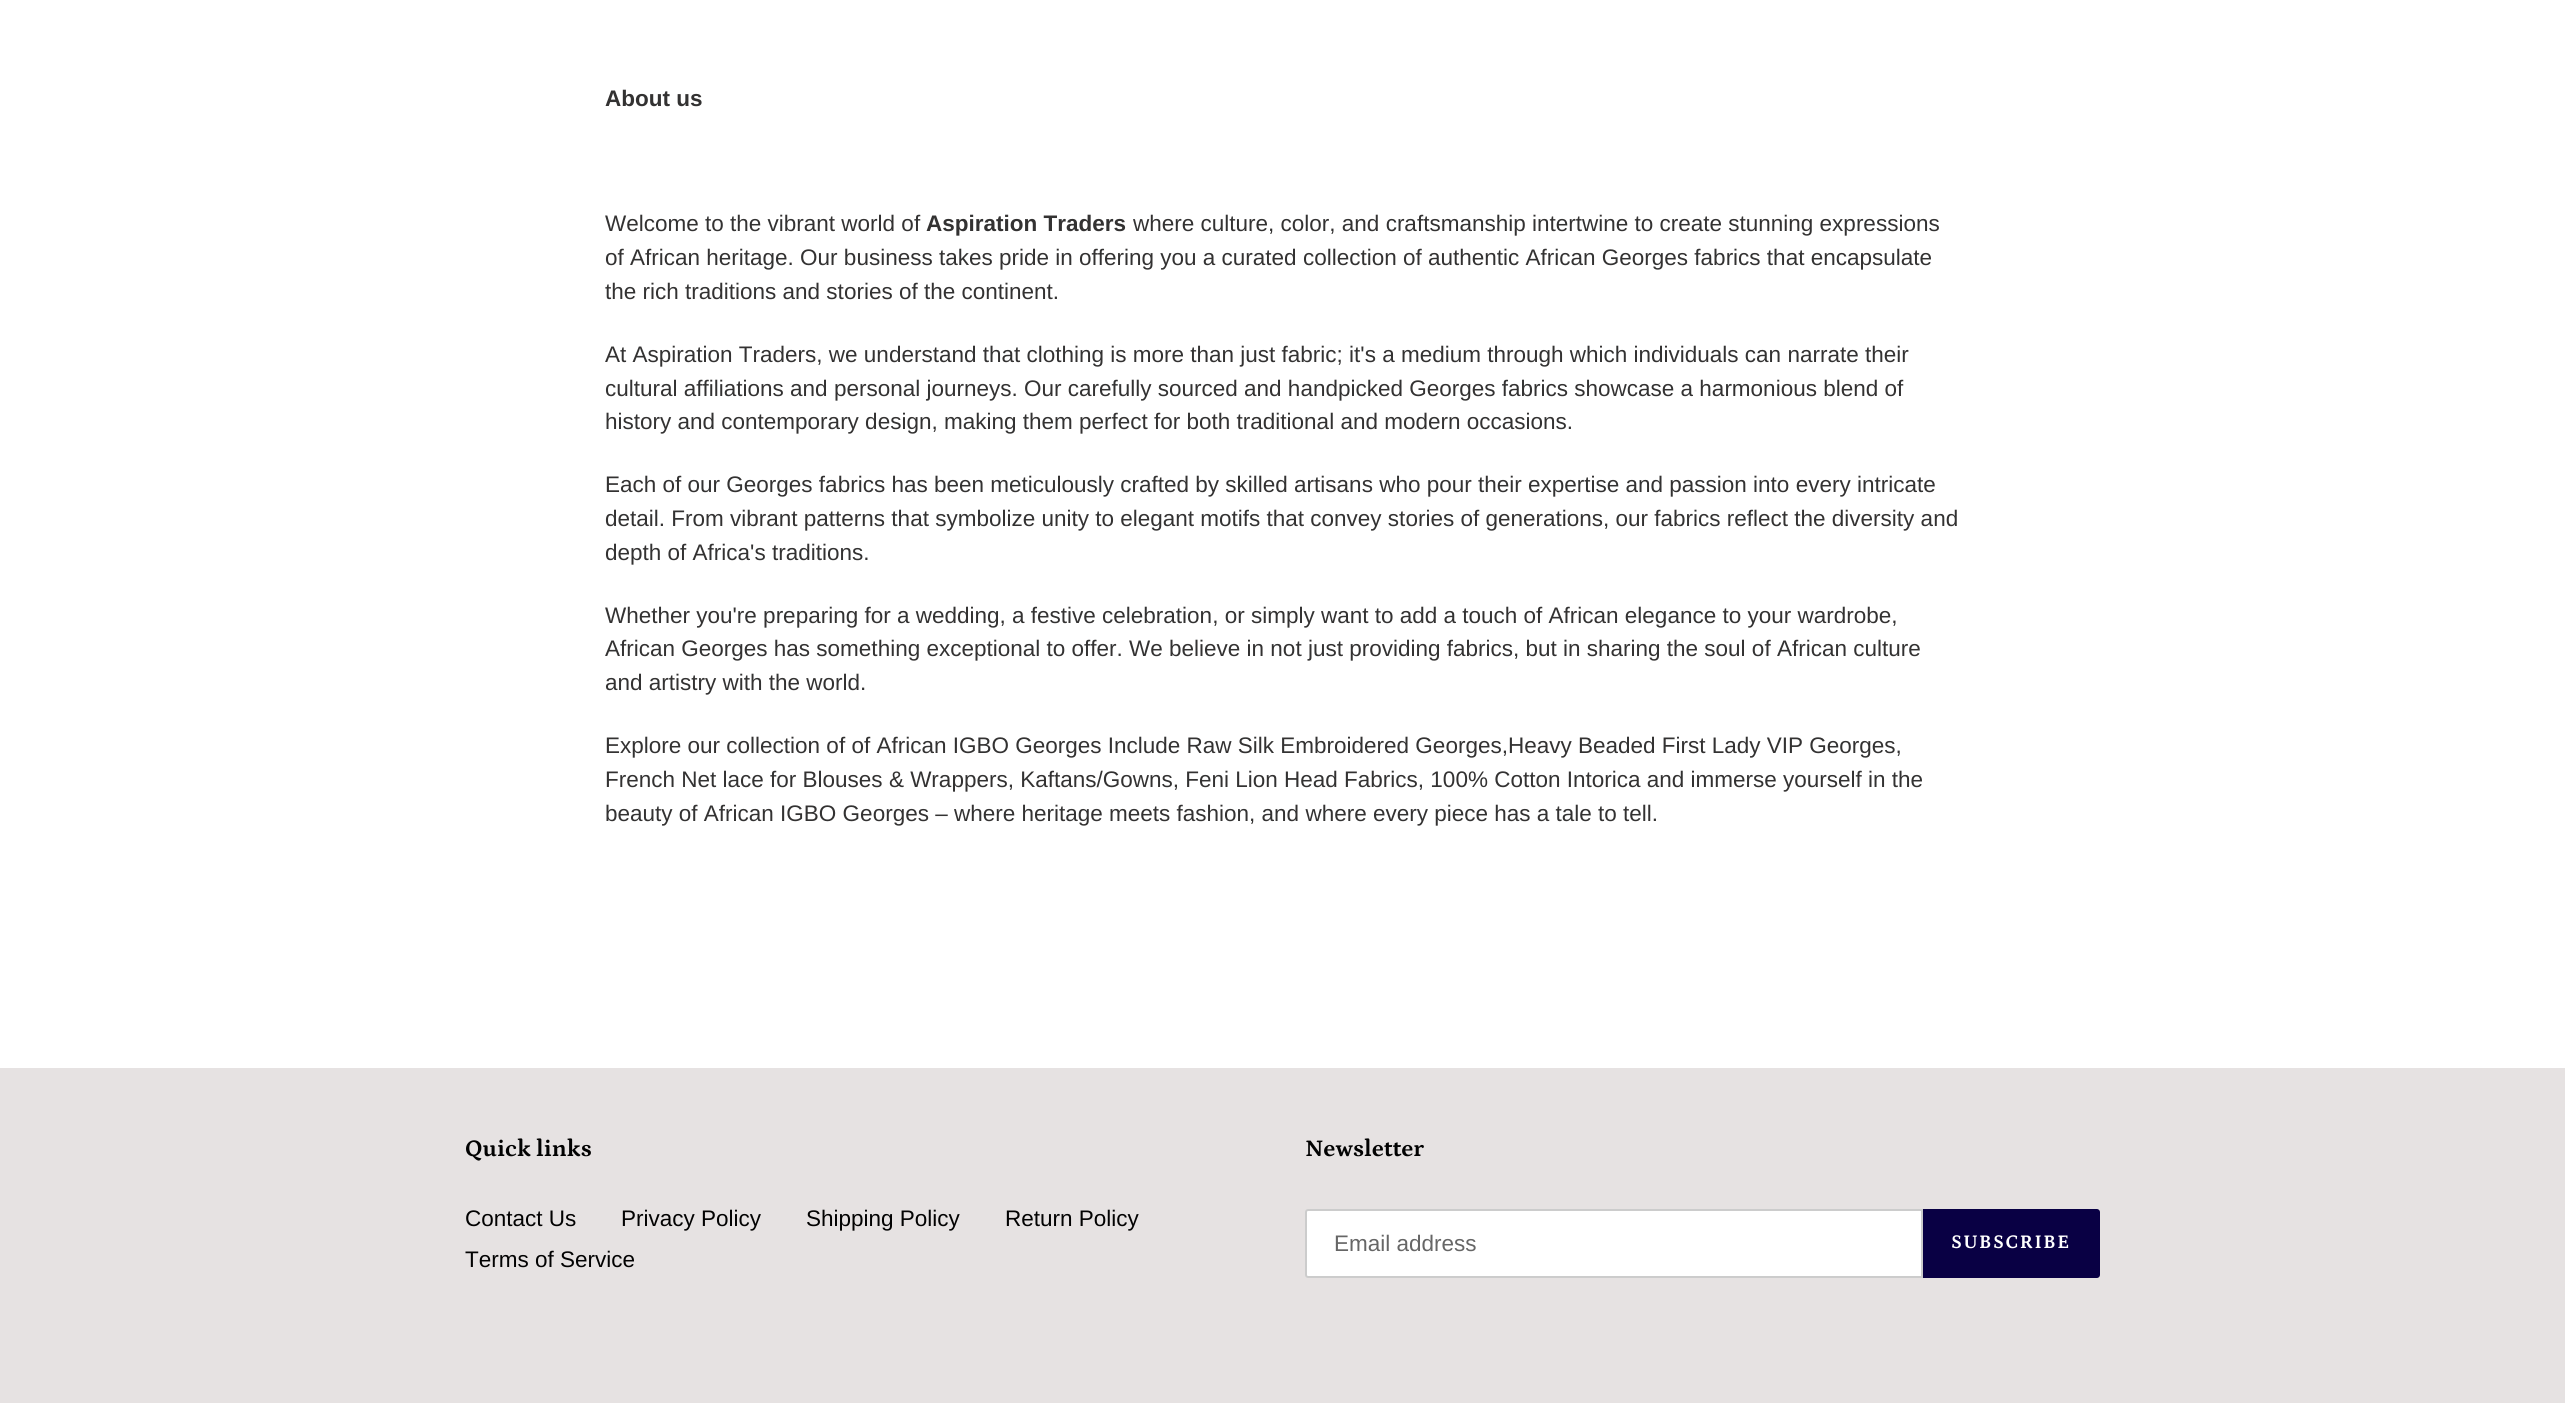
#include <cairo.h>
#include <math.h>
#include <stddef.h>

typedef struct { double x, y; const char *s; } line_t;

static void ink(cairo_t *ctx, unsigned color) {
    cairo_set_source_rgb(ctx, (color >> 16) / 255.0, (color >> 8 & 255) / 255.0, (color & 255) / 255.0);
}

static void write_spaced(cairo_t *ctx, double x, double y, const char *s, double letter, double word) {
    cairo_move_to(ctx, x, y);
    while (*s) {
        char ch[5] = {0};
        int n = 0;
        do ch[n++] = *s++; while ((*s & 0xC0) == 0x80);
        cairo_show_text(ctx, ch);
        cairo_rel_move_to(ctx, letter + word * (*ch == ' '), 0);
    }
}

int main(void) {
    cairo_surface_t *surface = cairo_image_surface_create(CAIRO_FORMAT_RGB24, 2565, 1403);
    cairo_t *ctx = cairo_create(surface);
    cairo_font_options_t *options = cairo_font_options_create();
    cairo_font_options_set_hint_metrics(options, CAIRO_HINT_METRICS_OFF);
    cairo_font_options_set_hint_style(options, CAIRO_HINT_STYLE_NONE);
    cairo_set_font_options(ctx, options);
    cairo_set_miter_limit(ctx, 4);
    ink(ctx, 0xFFFFFF);
    cairo_paint(ctx);
    cairo_select_font_face(ctx, "Liberation Sans", CAIRO_FONT_SLANT_NORMAL, CAIRO_FONT_WEIGHT_BOLD);
    cairo_set_font_size(ctx, 22.5);
    ink(ctx, 0x333232);
    cairo_move_to(ctx, 605, 106);
    cairo_show_text(ctx, "About us");
    cairo_select_font_face(ctx, "Liberation Sans", CAIRO_FONT_SLANT_NORMAL, CAIRO_FONT_WEIGHT_NORMAL);
    cairo_move_to(ctx, 605, 231);
    cairo_show_text(ctx, "Welcome to the vibrant world of");
    cairo_select_font_face(ctx, "Liberation Sans", CAIRO_FONT_SLANT_NORMAL, CAIRO_FONT_WEIGHT_BOLD);
    cairo_move_to(ctx, 926, 231);
    cairo_show_text(ctx, "Aspiration Traders");
    cairo_select_font_face(ctx, "Liberation Sans", CAIRO_FONT_SLANT_NORMAL, CAIRO_FONT_WEIGHT_NORMAL);
    {
        static const line_t items[] = {
            {1133, 231, "where culture, color, and craftsmanship intertwine to create stunning expressions"},
            {605, 265, "of African heritage. Our business takes pride in offering you a curated collection of authentic African Georges fabrics that encapsulate"},
            {605, 299, "the rich traditions and stories of the continent."},
            {605, 362, "At Aspiration Traders, we understand that clothing is more than just fabric; it's a medium through which individuals can narrate their"},
            {605, 396, "cultural affiliations and personal journeys. Our carefully sourced and handpicked Georges fabrics showcase a harmonious blend of"},
            {605, 429, "history and contemporary design, making them perfect for both traditional and modern occasions."},
            {605, 492, "Each of our Georges fabrics has been meticulously crafted by skilled artisans who pour their expertise and passion into every intricate"},
            {605, 526, "detail. From vibrant patterns that symbolize unity to elegant motifs that convey stories of generations, our fabrics reflect the diversity and"},
            {605, 560, "depth of Africa's traditions."},
            {605, 623, "Whether you're preparing for a wedding, a festive celebration, or simply want to add a touch of African elegance to your wardrobe,"},
            {605, 656, "African Georges has something exceptional to offer. We believe in not just providing fabrics, but in sharing the soul of African culture"},
            {605, 690, "and artistry with the world."},
            {605, 753, "Explore our collection of of African IGBO Georges Include Raw Silk Embroidered Georges,Heavy Beaded First Lady VIP Georges,"},
            {605, 787, "French Net lace for Blouses & Wrappers, Kaftans/Gowns, Feni Lion Head Fabrics, 100% Cotton Intorica and immerse yourself in the"},
            {605, 821, "beauty of African IGBO Georges – where heritage meets fashion, and where every piece has a tale to tell."},
        };
        for (size_t i = 0; i < sizeof items / sizeof *items; i++) {
            cairo_move_to(ctx, items[i].x, items[i].y);
            cairo_show_text(ctx, items[i].s);
        }
    }
    ink(ctx, 0xE6E2E2);
    cairo_rectangle(ctx, 0, 1068, 2565, 335);
    cairo_fill(ctx);
    cairo_select_font_face(ctx, "Petrona", CAIRO_FONT_SLANT_NORMAL, CAIRO_FONT_WEIGHT_BOLD);
    cairo_set_font_size(ctx, 24);
    ink(ctx, 0x020202);
    cairo_move_to(ctx, 465, 1156);
    cairo_show_text(ctx, "Quick links");
    cairo_select_font_face(ctx, "Liberation Sans", CAIRO_FONT_SLANT_NORMAL, CAIRO_FONT_WEIGHT_NORMAL);
    cairo_set_font_size(ctx, 22.5);
    {
        static const line_t items[] = {
            {465, 1226, "Contact Us"},
            {621, 1226, "Privacy Policy"},
            {806, 1226, "Shipping Policy"},
            {1005, 1226, "Return Policy"},
            {465, 1267, "Terms of Service"},
        };
        for (size_t i = 0; i < sizeof items / sizeof *items; i++) {
            cairo_move_to(ctx, items[i].x, items[i].y);
            cairo_show_text(ctx, items[i].s);
        }
    }
    cairo_select_font_face(ctx, "Petrona", CAIRO_FONT_SLANT_NORMAL, CAIRO_FONT_WEIGHT_BOLD);
    cairo_set_font_size(ctx, 24);
    cairo_move_to(ctx, 1305, 1156);
    cairo_show_text(ctx, "Newsletter");
    ink(ctx, 0xFFFFFF);
    cairo_new_path(ctx);
    cairo_move_to(ctx, 1308, 1210);
    cairo_line_to(ctx, 1922, 1210);
    cairo_line_to(ctx, 1922, 1277);
    cairo_line_to(ctx, 1308, 1277);
    cairo_curve_to(ctx, 1307, 1277, 1306, 1276, 1306, 1275);
    cairo_line_to(ctx, 1306, 1212);
    cairo_curve_to(ctx, 1306, 1211, 1307, 1210, 1308, 1210);
    cairo_close_path(ctx);
    cairo_fill_preserve(ctx);
    ink(ctx, 0xCCCCCC);
    cairo_stroke(ctx);
    cairo_select_font_face(ctx, "Liberation Sans", CAIRO_FONT_SLANT_NORMAL, CAIRO_FONT_WEIGHT_NORMAL);
    cairo_set_font_size(ctx, 22.5);
    ink(ctx, 0x666666);
    cairo_move_to(ctx, 1334, 1251);
    cairo_show_text(ctx, "Email address");
    ink(ctx, 0x090044);
    cairo_new_path(ctx);
    cairo_move_to(ctx, 1923, 1209);
    cairo_line_to(ctx, 2097, 1209);
    cairo_curve_to(ctx, 2098.5, 1209, 2100, 1210.5, 2100, 1212);
    cairo_line_to(ctx, 2100, 1275);
    cairo_curve_to(ctx, 2100, 1276.5, 2098.5, 1278, 2097, 1278);
    cairo_line_to(ctx, 1923, 1278);
    cairo_close_path(ctx);
    cairo_fill(ctx);
    cairo_select_font_face(ctx, "Petrona", CAIRO_FONT_SLANT_NORMAL, CAIRO_FONT_WEIGHT_BOLD);
    cairo_set_font_size(ctx, 19.5);
    ink(ctx, 0xFFFFFF);
    write_spaced(ctx, 1951, 1248, "SUBSCRIBE", 1.5, 0);
    cairo_surface_write_to_png(surface, "image.png");
    cairo_font_options_destroy(options);
    cairo_destroy(ctx);
    cairo_surface_destroy(surface);
    return 0;
}
